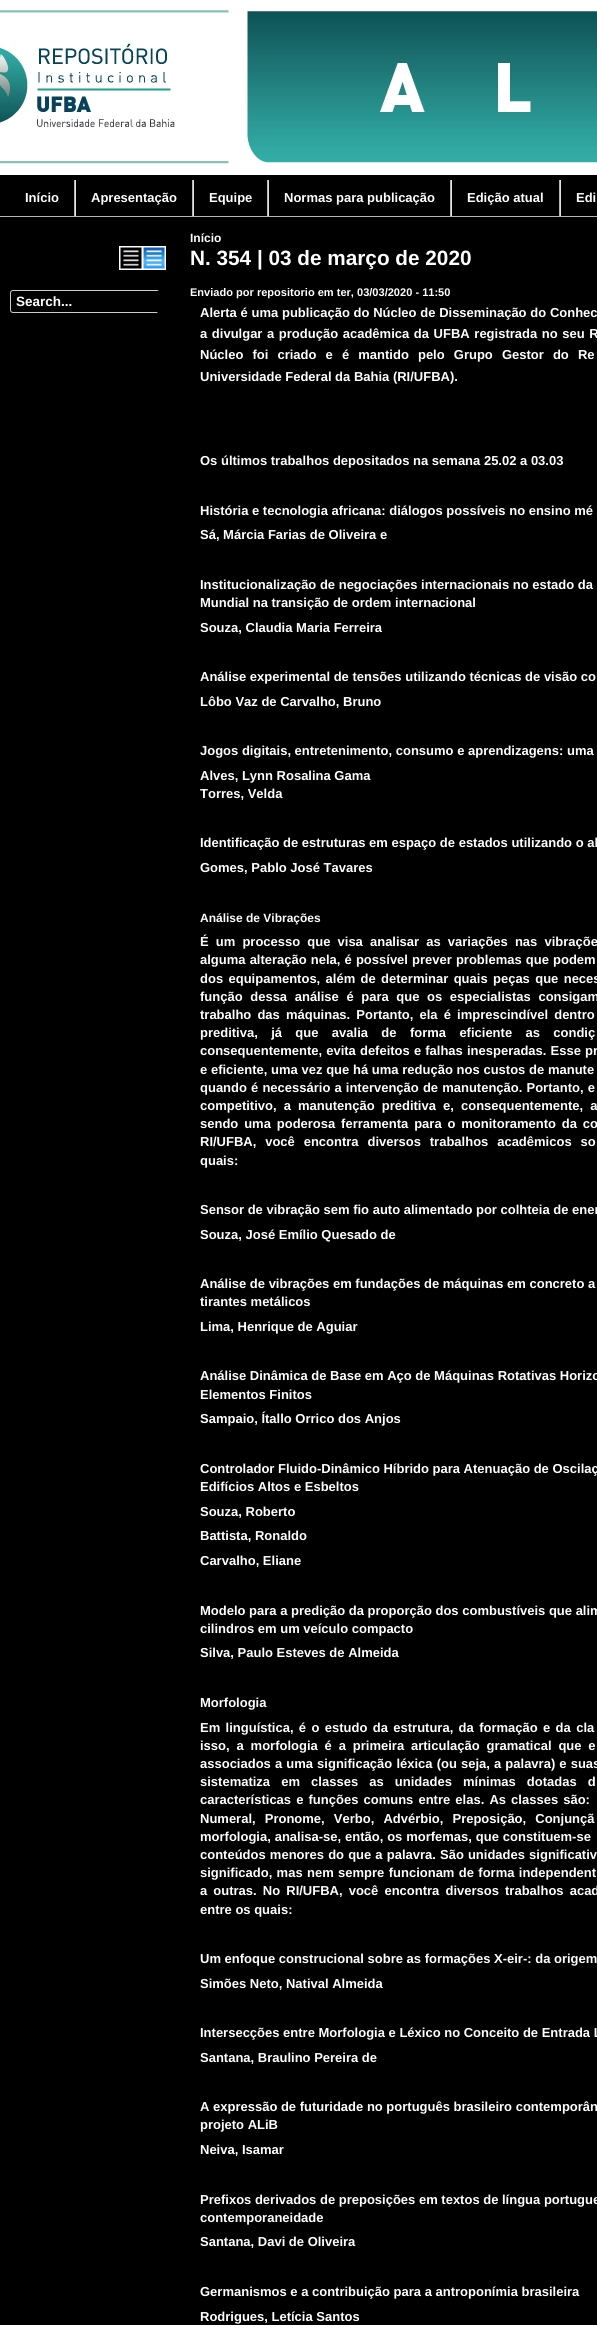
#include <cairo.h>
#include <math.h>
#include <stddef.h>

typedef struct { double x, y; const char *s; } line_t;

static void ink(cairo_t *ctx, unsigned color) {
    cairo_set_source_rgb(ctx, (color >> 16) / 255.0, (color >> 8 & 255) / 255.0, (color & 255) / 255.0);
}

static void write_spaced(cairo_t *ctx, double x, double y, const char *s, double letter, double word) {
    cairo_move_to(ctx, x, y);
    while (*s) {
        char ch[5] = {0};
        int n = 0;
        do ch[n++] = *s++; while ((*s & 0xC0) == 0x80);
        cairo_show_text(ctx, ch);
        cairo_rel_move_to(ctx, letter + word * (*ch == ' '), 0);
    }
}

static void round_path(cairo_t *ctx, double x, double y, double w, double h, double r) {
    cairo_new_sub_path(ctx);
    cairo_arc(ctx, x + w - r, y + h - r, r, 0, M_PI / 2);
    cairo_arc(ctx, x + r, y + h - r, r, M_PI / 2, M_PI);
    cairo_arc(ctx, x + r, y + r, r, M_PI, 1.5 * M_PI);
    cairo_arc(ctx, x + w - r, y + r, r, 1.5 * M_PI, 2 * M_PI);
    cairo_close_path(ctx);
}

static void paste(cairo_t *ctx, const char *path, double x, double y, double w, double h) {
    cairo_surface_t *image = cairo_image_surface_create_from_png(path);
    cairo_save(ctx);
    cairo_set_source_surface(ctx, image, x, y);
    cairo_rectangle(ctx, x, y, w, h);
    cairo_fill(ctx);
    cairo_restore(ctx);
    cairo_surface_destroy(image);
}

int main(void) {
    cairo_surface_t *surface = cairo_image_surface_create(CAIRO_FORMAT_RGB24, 597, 2325);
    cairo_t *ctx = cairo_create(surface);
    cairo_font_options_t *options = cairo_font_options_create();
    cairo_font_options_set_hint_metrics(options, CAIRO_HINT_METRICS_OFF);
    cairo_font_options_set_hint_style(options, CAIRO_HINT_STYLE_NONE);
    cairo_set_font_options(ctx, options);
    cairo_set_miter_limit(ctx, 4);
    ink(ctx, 0x000000);
    cairo_paint(ctx);
    paste(ctx, "media/1.png", 0, 0, 597, 175);
    ink(ctx, 0xB5B5B4);
    cairo_rectangle(ctx, 0, 216, 597, 1);
    cairo_fill(ctx);
    cairo_rectangle(ctx, 74, 180, 1, 36);
    cairo_fill(ctx);
    cairo_select_font_face(ctx, "Liberation Sans", CAIRO_FONT_SLANT_NORMAL, CAIRO_FONT_WEIGHT_BOLD);
    cairo_set_font_size(ctx, 13);
    ink(ctx, 0xFFFFFF);
    cairo_move_to(ctx, 25, 202);
    cairo_show_text(ctx, "Início");
    ink(ctx, 0xB5B5B4);
    cairo_rectangle(ctx, 192, 180, 1, 36);
    cairo_fill(ctx);
    ink(ctx, 0xE1E1E1);
    cairo_rectangle(ctx, 75, 180, 1, 36);
    cairo_fill(ctx);
    ink(ctx, 0xFFFFFF);
    cairo_move_to(ctx, 91, 202);
    cairo_show_text(ctx, "Apresentação");
    ink(ctx, 0xB5B5B4);
    cairo_rectangle(ctx, 267, 180, 1, 36);
    cairo_fill(ctx);
    ink(ctx, 0xE1E1E1);
    cairo_rectangle(ctx, 193, 180, 1, 36);
    cairo_fill(ctx);
    ink(ctx, 0xFFFFFF);
    cairo_move_to(ctx, 209, 202);
    cairo_show_text(ctx, "Equipe");
    ink(ctx, 0xB5B5B4);
    cairo_rectangle(ctx, 450, 180, 1, 36);
    cairo_fill(ctx);
    ink(ctx, 0xE1E1E1);
    cairo_rectangle(ctx, 268, 180, 1, 36);
    cairo_fill(ctx);
    ink(ctx, 0xFFFFFF);
    cairo_move_to(ctx, 284, 202);
    cairo_show_text(ctx, "Normas para publicação");
    ink(ctx, 0xB5B5B4);
    cairo_rectangle(ctx, 559, 180, 1, 36);
    cairo_fill(ctx);
    ink(ctx, 0xE1E1E1);
    cairo_rectangle(ctx, 451, 180, 1, 36);
    cairo_fill(ctx);
    ink(ctx, 0xFFFFFF);
    cairo_move_to(ctx, 467, 202);
    cairo_show_text(ctx, "Edição atual");
    ink(ctx, 0xE1E1E1);
    cairo_rectangle(ctx, 560, 180, 1, 36);
    cairo_fill(ctx);
    ink(ctx, 0xFFFFFF);
    cairo_move_to(ctx, 576, 202);
    cairo_show_text(ctx, "Edi");
    paste(ctx, "media/2.png", 119, 246, 23, 24);
    paste(ctx, "media/3.png", 142, 246, 24, 24);
    round_path(ctx, 10.5, 290.5, 149, 22, 2.5);
    ink(ctx, 0xCCCCCC);
    cairo_set_line_width(ctx, 1);
    cairo_stroke(ctx);
    cairo_set_font_size(ctx, 13.5);
    ink(ctx, 0xFFFFFF);
    cairo_move_to(ctx, 16, 306);
    cairo_show_text(ctx, "Search...");
    ink(ctx, 0x000000);
    round_path(ctx, 157, 290, 24, 24, 3);
    cairo_fill(ctx);
    cairo_set_font_size(ctx, 12);
    ink(ctx, 0xFFFFFF);
    cairo_move_to(ctx, 190, 242);
    cairo_show_text(ctx, "Início");
    cairo_set_font_size(ctx, 20.75);
    cairo_move_to(ctx, 190, 265);
    cairo_show_text(ctx, "N. 354 | 03 de março de 2020");
    cairo_set_font_size(ctx, 11.05);
    cairo_move_to(ctx, 190, 296);
    cairo_show_text(ctx, "Enviado por repositorio em ter, 03/03/2020 - 11:50");
    cairo_set_font_size(ctx, 13);
    write_spaced(ctx, 200, 317, "Alerta é uma publicação do Núcleo de Disseminação do Conhec", 0, 0.1);
    write_spaced(ctx, 200, 338, "a divulgar a produção acadêmica da UFBA registrada no seu R", 0, 1);
    write_spaced(ctx, 200, 359, "Núcleo foi criado e é mantido pelo Grupo Gestor do Re", 0, 5.5);
    {
        static const line_t items[] = {
            {200, 381, "Universidade Federal da Bahia (RI/UFBA)."},
            {200, 465, "Os últimos trabalhos depositados na semana 25.02 a 03.03"},
            {200, 515, "História e tecnologia africana: diálogos possíveis no ensino mé"},
            {200, 539, "Sá, Márcia Farias de Oliveira e"},
            {200, 589, "Institucionalização de negociações internacionais no estado da"},
            {200, 607, "Mundial na transição de ordem internacional"},
            {200, 632, "Souza, Claudia Maria Ferreira"},
            {200, 681, "Análise experimental de tensões utilizando técnicas de visão co"},
            {200, 706, "Lôbo Vaz de Carvalho, Bruno"},
            {200, 755, "Jogos digitais, entretenimento, consumo e aprendizagens: uma"},
            {200, 780, "Alves, Lynn Rosalina Gama"},
            {200, 798, "Torres, Velda"},
            {200, 847, "Identificação de estruturas em espaço de estados utilizando o al"},
            {200, 872, "Gomes, Pablo José Tavares"},
        };
        for (size_t i = 0; i < sizeof items / sizeof *items; i++) {
            cairo_move_to(ctx, items[i].x, items[i].y);
            cairo_show_text(ctx, items[i].s);
        }
    }
    cairo_set_font_size(ctx, 12);
    cairo_move_to(ctx, 200, 922);
    cairo_show_text(ctx, "Análise de Vibrações");
    cairo_set_font_size(ctx, 13);
    write_spaced(ctx, 200, 946, "É um processo que visa analisar as variações nas vibraçõe", 0, 3.5);
    write_spaced(ctx, 200, 964, "alguma alteração nela, é possível prever problemas que podem", 0, 0.5);
    write_spaced(ctx, 200, 983, "dos equipamentos, além de determinar quais peças que neces", 0, 1.75);
    write_spaced(ctx, 200, 1001, "função dessa análise é para que os especialistas consigam", 0, 4);
    write_spaced(ctx, 200, 1019, "trabalho das máquinas. Portanto, ela é imprescindível dentro", 0, 2.5);
    write_spaced(ctx, 200, 1037, "preditiva, já que avalia de forma eficiente as condiç", 0, 9.75);
    write_spaced(ctx, 200, 1055, "consequentemente, evita defeitos e falhas inesperadas. Esse pr", 0, 0.5);
    write_spaced(ctx, 200, 1074, "e eficiente, uma vez que há uma redução nos custos de manute", 0, 0.1);
    write_spaced(ctx, 200, 1092, "quando é necessário a intervenção de manutenção. Portanto, e", 0, 0.5);
    write_spaced(ctx, 200, 1110, "competitivo, a manutenção preditiva e, consequentemente, a", 0, 3.5);
    write_spaced(ctx, 200, 1128, "sendo uma poderosa ferramenta para o monitoramento da co", 0, 2.25);
    write_spaced(ctx, 200, 1146, "RI/UFBA, você encontra diversos trabalhos acadêmicos so", 0, 5.25);
    {
        static const line_t items[] = {
            {200, 1165, "quais:"},
            {200, 1214, "Sensor de vibração sem fio auto alimentado por colhteia de ener"},
            {200, 1239, "Souza, José Emílio Quesado de"},
            {200, 1288, "Análise de vibrações em fundações de máquinas em concreto a"},
            {200, 1306, "tirantes metálicos"},
            {200, 1331, "Lima, Henrique de Aguiar"},
            {200, 1380, "Análise Dinâmica de Base em Aço de Máquinas Rotativas Horizo"},
            {200, 1399, "Elementos Finitos"},
            {200, 1423, "Sampaio, Ítallo Orrico dos Anjos"},
            {200, 1473, "Controlador Fluido-Dinâmico Híbrido para Atenuação de Oscilaç"},
            {200, 1491, "Edifícios Altos e Esbeltos"},
            {200, 1516, "Souza, Roberto"},
            {200, 1540, "Battista, Ronaldo"},
            {200, 1565, "Carvalho, Eliane"},
            {200, 1615, "Modelo para a predição da proporção dos combustíveis que alim"},
            {200, 1633, "cilindros em um veículo compacto"},
            {200, 1657, "Silva, Paulo Esteves de Almeida"},
            {200, 1707, "Morfologia"},
        };
        for (size_t i = 0; i < sizeof items / sizeof *items; i++) {
            cairo_move_to(ctx, items[i].x, items[i].y);
            cairo_show_text(ctx, items[i].s);
        }
    }
    write_spaced(ctx, 200, 1732, "Em linguística, é o estudo da estrutura, da formação e da cla", 0, 1.75);
    write_spaced(ctx, 200, 1750, "isso, a morfologia é a primeira articulação gramatical que e", 0, 3.25);
    write_spaced(ctx, 200, 1768, "associados a uma significação léxica (ou seja, a palavra) e suas", 0, 0.5);
    write_spaced(ctx, 200, 1786, "sistematiza em classes as unidades mínimas dotadas d", 0, 7.5);
    write_spaced(ctx, 200, 1804, "características e funções comuns entre elas. As classes são:", 0, 1.5);
    write_spaced(ctx, 200, 1823, "Numeral, Pronome, Verbo, Advérbio, Preposição, Conjunçã", 0, 5.5);
    write_spaced(ctx, 200, 1841, "morfologia, analisa-se, então, os morfemas, que constituem-se", 0, 0.25);
    write_spaced(ctx, 200, 1859, "conteúdos menores do que a palavra. São unidades significativ", 0, 0.5);
    write_spaced(ctx, 200, 1877, "significado, mas nem sempre funcionam de forma independent", 0, 0.75);
    write_spaced(ctx, 200, 1895, "a outras. No RI/UFBA, você encontra diversos trabalhos acad", 0, 2.5);
    {
        static const line_t items[] = {
            {200, 1914, "entre os quais:"},
            {200, 1963, "Um enfoque construcional sobre as formações X-eir-: da origem"},
            {200, 1988, "Simões Neto, Natival Almeida"},
            {200, 2037, "Intersecções entre Morfologia e Léxico no Conceito de Entrada L"},
            {200, 2062, "Santana, Braulino Pereira de"},
            {200, 2111, "A expressão de futuridade no português brasileiro contemporân"},
            {200, 2129, "projeto ALiB"},
            {200, 2154, "Neiva, Isamar"},
            {200, 2204, "Prefixos derivados de preposições em textos de língua portugue"},
            {200, 2222, "contemporaneidade"},
            {200, 2246, "Santana, Davi de Oliveira"},
            {200, 2296, "Germanismos e a contribuição para a antroponímia brasileira"},
            {200, 2321, "Rodrigues, Letícia Santos"},
        };
        for (size_t i = 0; i < sizeof items / sizeof *items; i++) {
            cairo_move_to(ctx, items[i].x, items[i].y);
            cairo_show_text(ctx, items[i].s);
        }
    }
    cairo_surface_write_to_png(surface, "image.png");
    cairo_font_options_destroy(options);
    cairo_destroy(ctx);
    cairo_surface_destroy(surface);
    return 0;
}
